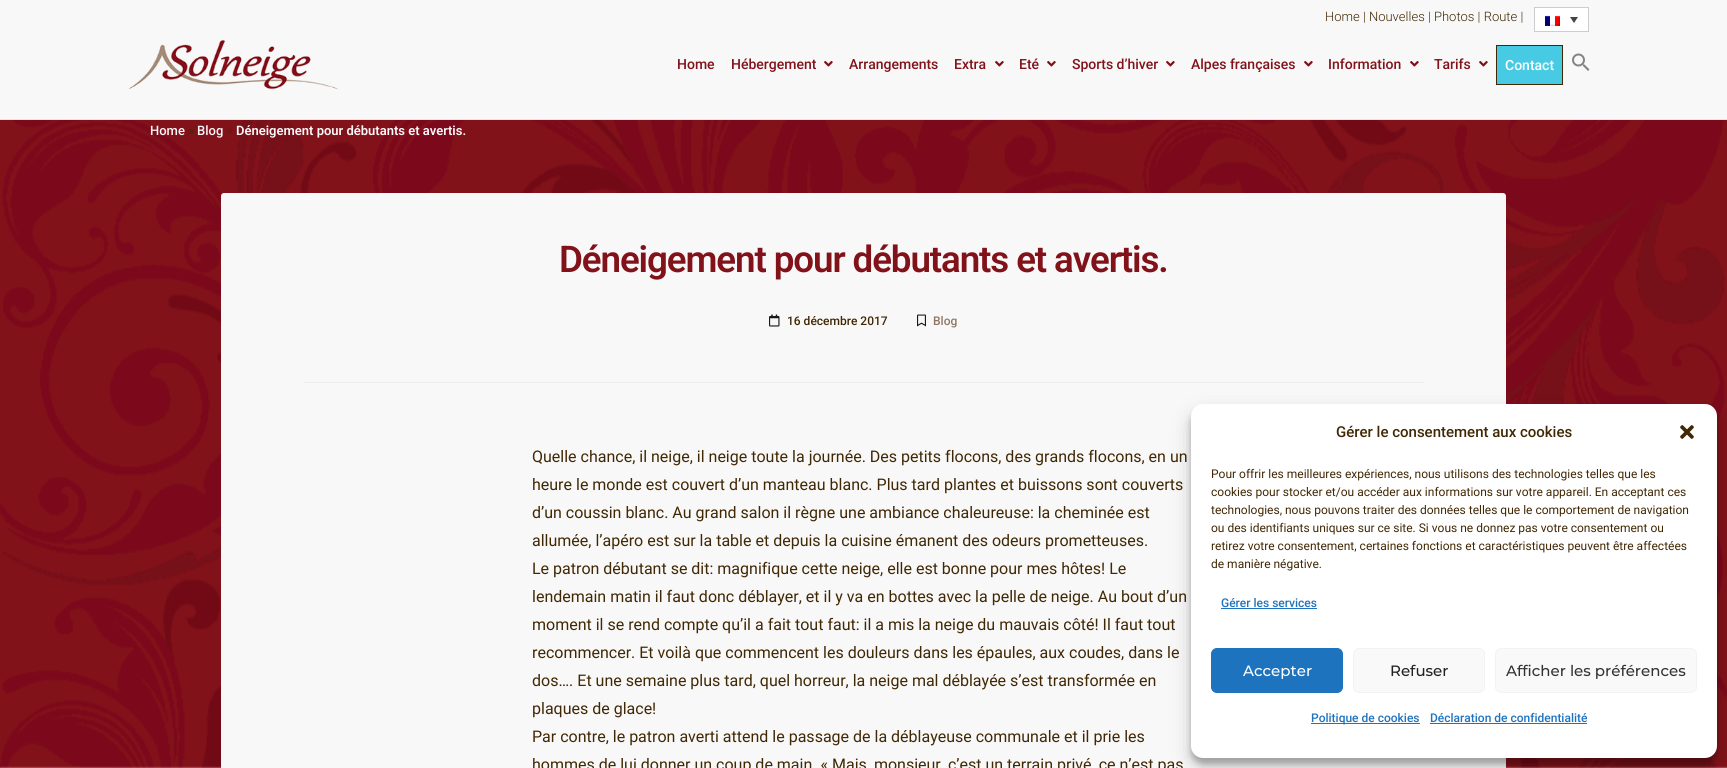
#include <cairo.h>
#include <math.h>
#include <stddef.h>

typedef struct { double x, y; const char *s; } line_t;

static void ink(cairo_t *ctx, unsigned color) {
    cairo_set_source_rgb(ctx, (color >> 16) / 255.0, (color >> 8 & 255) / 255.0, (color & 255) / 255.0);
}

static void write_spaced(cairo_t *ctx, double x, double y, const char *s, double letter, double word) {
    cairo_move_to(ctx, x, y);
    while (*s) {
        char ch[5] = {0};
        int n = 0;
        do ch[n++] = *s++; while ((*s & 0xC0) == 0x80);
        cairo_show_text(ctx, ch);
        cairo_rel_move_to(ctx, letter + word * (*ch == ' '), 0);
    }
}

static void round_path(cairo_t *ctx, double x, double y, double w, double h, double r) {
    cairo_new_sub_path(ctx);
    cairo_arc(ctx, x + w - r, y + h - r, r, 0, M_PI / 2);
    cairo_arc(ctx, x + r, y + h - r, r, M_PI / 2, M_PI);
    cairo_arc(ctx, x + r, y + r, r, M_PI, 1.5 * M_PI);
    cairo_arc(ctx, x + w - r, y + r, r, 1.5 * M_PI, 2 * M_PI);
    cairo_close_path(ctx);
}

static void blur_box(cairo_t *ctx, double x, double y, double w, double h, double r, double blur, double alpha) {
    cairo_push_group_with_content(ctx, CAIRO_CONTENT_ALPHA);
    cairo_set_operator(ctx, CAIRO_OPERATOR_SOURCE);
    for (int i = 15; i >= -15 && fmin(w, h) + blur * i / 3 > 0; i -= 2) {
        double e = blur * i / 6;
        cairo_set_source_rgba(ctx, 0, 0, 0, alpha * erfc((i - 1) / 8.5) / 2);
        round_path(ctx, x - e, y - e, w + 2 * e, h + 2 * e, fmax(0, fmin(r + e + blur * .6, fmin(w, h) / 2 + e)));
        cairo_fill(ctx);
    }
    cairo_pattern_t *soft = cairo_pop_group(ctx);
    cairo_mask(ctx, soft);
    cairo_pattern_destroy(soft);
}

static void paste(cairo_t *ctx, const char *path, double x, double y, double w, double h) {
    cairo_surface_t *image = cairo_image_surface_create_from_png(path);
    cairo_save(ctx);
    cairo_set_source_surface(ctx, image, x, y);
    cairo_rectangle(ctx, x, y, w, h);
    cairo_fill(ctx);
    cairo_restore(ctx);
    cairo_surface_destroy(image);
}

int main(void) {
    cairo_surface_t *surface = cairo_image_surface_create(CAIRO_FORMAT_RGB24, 1727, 768);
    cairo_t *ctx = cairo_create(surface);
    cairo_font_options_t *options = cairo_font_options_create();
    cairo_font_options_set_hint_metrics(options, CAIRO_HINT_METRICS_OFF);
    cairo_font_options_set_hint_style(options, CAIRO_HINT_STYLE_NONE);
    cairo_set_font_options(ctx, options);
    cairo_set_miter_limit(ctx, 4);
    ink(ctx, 0xFFFFFF);
    cairo_paint(ctx);
    paste(ctx, "media/1.png", 0, 120, 1727, 648);
    ink(ctx, 0xF8F8F8);
    cairo_rectangle(ctx, 0, 0, 1727, 119);
    cairo_fill(ctx);
    cairo_select_font_face(ctx, "Roboto Light", CAIRO_FONT_SLANT_NORMAL, CAIRO_FONT_WEIGHT_NORMAL);
    cairo_set_font_size(ctx, 13);
    ink(ctx, 0x412804);
    cairo_move_to(ctx, 1325, 21);
    cairo_show_text(ctx, "Home | Nouvelles | Photos | Route |");
    ink(ctx, 0xFFFFFF);
    cairo_rectangle(ctx, 1534.5, 7.5, 54, 24);
    cairo_fill_preserve(ctx);
    ink(ctx, 0xCDCDCD);
    cairo_set_line_width(ctx, 1);
    cairo_stroke(ctx);
    paste(ctx, "media/2.png", 1545, 15, 15, 11);
    ink(ctx, 0x444444);
    cairo_new_path(ctx);
    cairo_move_to(ctx, 1570, 17);
    cairo_line_to(ctx, 1578, 17);
    cairo_line_to(ctx, 1574, 23);
    cairo_close_path(ctx);
    cairo_fill(ctx);
    paste(ctx, "media/3.png", 128, 40, 210, 50);
    cairo_select_font_face(ctx, "Roboto Medium", CAIRO_FONT_SLANT_NORMAL, CAIRO_FONT_WEIGHT_NORMAL);
    cairo_set_font_size(ctx, 14);
    ink(ctx, 0x82121A);
    cairo_move_to(ctx, 677, 69);
    cairo_show_text(ctx, "Home");
    cairo_move_to(ctx, 731, 69);
    cairo_show_text(ctx, "Hébergement");
    paste(ctx, "media/4.png", 824, 61, 9, 6);
    cairo_move_to(ctx, 849, 69);
    cairo_show_text(ctx, "Arrangements");
    cairo_move_to(ctx, 954, 69);
    cairo_show_text(ctx, "Extra");
    paste(ctx, "media/4.png", 995, 61, 9, 6);
    cairo_move_to(ctx, 1019, 69);
    cairo_show_text(ctx, "Eté");
    paste(ctx, "media/4.png", 1047, 61, 9, 6);
    cairo_move_to(ctx, 1072, 69);
    cairo_show_text(ctx, "Sports d’hiver");
    paste(ctx, "media/4.png", 1166, 61, 9, 6);
    cairo_move_to(ctx, 1191, 69);
    cairo_show_text(ctx, "Alpes françaises");
    paste(ctx, "media/4.png", 1304, 61, 9, 6);
    cairo_move_to(ctx, 1328, 69);
    cairo_show_text(ctx, "Information");
    paste(ctx, "media/4.png", 1410, 61, 9, 6);
    cairo_move_to(ctx, 1434, 69);
    cairo_show_text(ctx, "Tarifs");
    paste(ctx, "media/4.png", 1479, 61, 9, 6);
    ink(ctx, 0x47CBE5);
    cairo_rectangle(ctx, 1496.5, 45.5, 66, 39);
    cairo_fill_preserve(ctx);
    ink(ctx, 0x412804);
    cairo_stroke(ctx);
    ink(ctx, 0xFFFFFF);
    cairo_move_to(ctx, 1505, 70);
    cairo_show_text(ctx, "Contact");
    paste(ctx, "media/5.png", 1572, 53, 18, 18);
    ink(ctx, 0xECE1E2);
    cairo_rectangle(ctx, 0, 119, 1727, 1);
    cairo_fill(ctx);
    cairo_set_font_size(ctx, 13);
    ink(ctx, 0xF8F8F8);
    cairo_move_to(ctx, 150, 135);
    cairo_show_text(ctx, "Home");
    cairo_select_font_face(ctx, "Roboto", CAIRO_FONT_SLANT_NORMAL, CAIRO_FONT_WEIGHT_NORMAL);
    ink(ctx, 0x412804);
    cairo_move_to(ctx, 188, 135);
    cairo_show_text(ctx, "»");
    cairo_select_font_face(ctx, "Roboto Medium", CAIRO_FONT_SLANT_NORMAL, CAIRO_FONT_WEIGHT_NORMAL);
    ink(ctx, 0xF8F8F8);
    cairo_move_to(ctx, 197, 135);
    cairo_show_text(ctx, "Blog");
    cairo_select_font_face(ctx, "Roboto", CAIRO_FONT_SLANT_NORMAL, CAIRO_FONT_WEIGHT_NORMAL);
    ink(ctx, 0x412804);
    cairo_move_to(ctx, 227, 135);
    cairo_show_text(ctx, "»");
    cairo_select_font_face(ctx, "Roboto SemiBold", CAIRO_FONT_SLANT_NORMAL, CAIRO_FONT_WEIGHT_NORMAL);
    ink(ctx, 0xF8F8F8);
    cairo_move_to(ctx, 236, 135);
    cairo_show_text(ctx, "Déneigement pour débutants et avertis.");
    round_path(ctx, 221, 193, 1285, 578, 3);
    cairo_fill(ctx);
    ink(ctx, 0xEDEDED);
    cairo_rectangle(ctx, 304, 382, 1120, 1);
    cairo_fill(ctx);
    cairo_set_font_size(ctx, 36.75);
    ink(ctx, 0x82121A);
    write_spaced(ctx, 559, 272, "Déneigement pour débutants et avertis.", -1.1, 0);
    paste(ctx, "media/6.png", 769, 314, 11, 13);
    cairo_select_font_face(ctx, "Roboto Medium", CAIRO_FONT_SLANT_NORMAL, CAIRO_FONT_WEIGHT_NORMAL);
    cairo_set_font_size(ctx, 12);
    ink(ctx, 0x412804);
    cairo_move_to(ctx, 787, 325);
    cairo_show_text(ctx, "16 décembre 2017");
    paste(ctx, "media/7.png", 917, 314, 9, 13);
    ink(ctx, 0x8E7766);
    cairo_move_to(ctx, 933, 325);
    cairo_show_text(ctx, "Blog");
    cairo_select_font_face(ctx, "Roboto", CAIRO_FONT_SLANT_NORMAL, CAIRO_FONT_WEIGHT_NORMAL);
    cairo_set_font_size(ctx, 16);
    ink(ctx, 0x412804);
    {
        static const line_t items[] = {
            {532, 462, "Quelle chance, il neige, il neige toute la journée. Des petits flocons, des grands flocons, en un"},
            {532, 490, "heure le monde est couvert d’un manteau blanc. Plus tard plantes et buissons sont couverts"},
            {532, 518, "d’un coussin blanc. Au grand salon il règne une ambiance chaleureuse: la cheminée est"},
            {532, 546, "allumée, l’apéro est sur la table et depuis la cuisine émanent des odeurs prometteuses."},
            {532, 574, "Le patron débutant se dit: magnifique cette neige, elle est bonne pour mes hôtes! Le"},
            {532, 602, "lendemain matin il faut donc déblayer, et il y va en bottes avec la pelle de neige. Au bout d’un"},
            {532, 630, "moment il se rend compte qu’il a fait tout faut: il a mis la neige du mauvais côté! Il faut tout"},
            {532, 658, "recommencer. Et voilà que commencent les douleurs dans les épaules, aux coudes, dans le"},
            {532, 686, "dos…. Et une semaine plus tard, quel horreur, la neige mal déblayée s’est transformée en"},
            {532, 714, "plaques de glace!"},
            {532, 742, "Par contre, le patron averti attend le passage de la déblayeuse communale et il prie les"},
            {532, 770, "hommes de lui donner un coup de main. « Mais, monsieur, c’est un terrain privé, ce n’est pas"},
        };
        for (size_t i = 0; i < sizeof items / sizeof *items; i++) {
            cairo_move_to(ctx, items[i].x, items[i].y);
            cairo_show_text(ctx, items[i].s);
        }
    }
    ink(ctx, 0x000000);
    blur_box(ctx, 1191, 410, 526, 354, 12, 3, 0.23);
    blur_box(ctx, 1191, 414, 526, 354, 12, 10, 0.19);
    ink(ctx, 0xFFFFFF);
    round_path(ctx, 1191, 404, 526, 354, 12);
    cairo_fill(ctx);
    cairo_select_font_face(ctx, "Roboto Medium", CAIRO_FONT_SLANT_NORMAL, CAIRO_FONT_WEIGHT_NORMAL);
    cairo_set_font_size(ctx, 15);
    ink(ctx, 0x412804);
    cairo_move_to(ctx, 1336, 437);
    cairo_show_text(ctx, "Gérer le consentement aux cookies");
    paste(ctx, "media/8.png", 1680, 425, 14, 14);
    cairo_select_font_face(ctx, "Roboto", CAIRO_FONT_SLANT_NORMAL, CAIRO_FONT_WEIGHT_NORMAL);
    cairo_set_font_size(ctx, 12);
    {
        static const line_t items[] = {
            {1211, 478, "Pour offrir les meilleures expériences, nous utilisons des technologies telles que les"},
            {1211, 496, "cookies pour stocker et/ou accéder aux informations sur votre appareil. En acceptant ces"},
            {1211, 514, "technologies, nous pouvons traiter des données telles que le comportement de navigation"},
            {1211, 532, "ou des identifiants uniques sur ce site. Si vous ne donnez pas votre consentement ou"},
            {1211, 550, "retirez votre consentement, certaines fonctions et caractéristiques peuvent être affectées"},
            {1211, 568, "de manière négative."},
        };
        for (size_t i = 0; i < sizeof items / sizeof *items; i++) {
            cairo_move_to(ctx, items[i].x, items[i].y);
            cairo_show_text(ctx, items[i].s);
        }
    }
    cairo_select_font_face(ctx, "Roboto Medium", CAIRO_FONT_SLANT_NORMAL, CAIRO_FONT_WEIGHT_NORMAL);
    ink(ctx, 0x1E73BE);
    cairo_move_to(ctx, 1221, 607);
    cairo_show_text(ctx, "Gérer les services");
    cairo_rectangle(ctx, 1221, 608, 96, 1);
    cairo_fill(ctx);
    round_path(ctx, 1211.5, 648.5, 131, 44, 5.5);
    cairo_fill_preserve(ctx);
    cairo_stroke(ctx);
    cairo_select_font_face(ctx, "Montserrat Medium", CAIRO_FONT_SLANT_NORMAL, CAIRO_FONT_WEIGHT_NORMAL);
    cairo_set_font_size(ctx, 15);
    ink(ctx, 0xFFFFFF);
    cairo_move_to(ctx, 1243, 676);
    cairo_show_text(ctx, "Accepter");
    ink(ctx, 0xF9F9F9);
    round_path(ctx, 1353.5, 648.5, 131, 44, 5.5);
    cairo_fill_preserve(ctx);
    ink(ctx, 0xF2F2F2);
    cairo_stroke(ctx);
    ink(ctx, 0x222222);
    cairo_move_to(ctx, 1390, 676);
    cairo_show_text(ctx, "Refuser");
    ink(ctx, 0xF9F9F9);
    round_path(ctx, 1495.5, 648.5, 201, 44, 5.5);
    cairo_fill_preserve(ctx);
    ink(ctx, 0xF2F2F2);
    cairo_stroke(ctx);
    ink(ctx, 0x333333);
    cairo_move_to(ctx, 1506, 676);
    cairo_show_text(ctx, "Afficher les préférences");
    ink(ctx, 0x1E73BE);
    cairo_rectangle(ctx, 1311, 723, 109, 1);
    cairo_fill(ctx);
    cairo_select_font_face(ctx, "Roboto Medium", CAIRO_FONT_SLANT_NORMAL, CAIRO_FONT_WEIGHT_NORMAL);
    cairo_set_font_size(ctx, 12);
    cairo_move_to(ctx, 1311, 722);
    cairo_show_text(ctx, "Politique de cookies");
    cairo_move_to(ctx, 1430, 722);
    cairo_show_text(ctx, "Déclaration de confidentialité");
    cairo_rectangle(ctx, 1430, 723, 157, 1);
    cairo_fill(ctx);
    cairo_surface_write_to_png(surface, "image.png");
    cairo_font_options_destroy(options);
    cairo_destroy(ctx);
    cairo_surface_destroy(surface);
    return 0;
}
